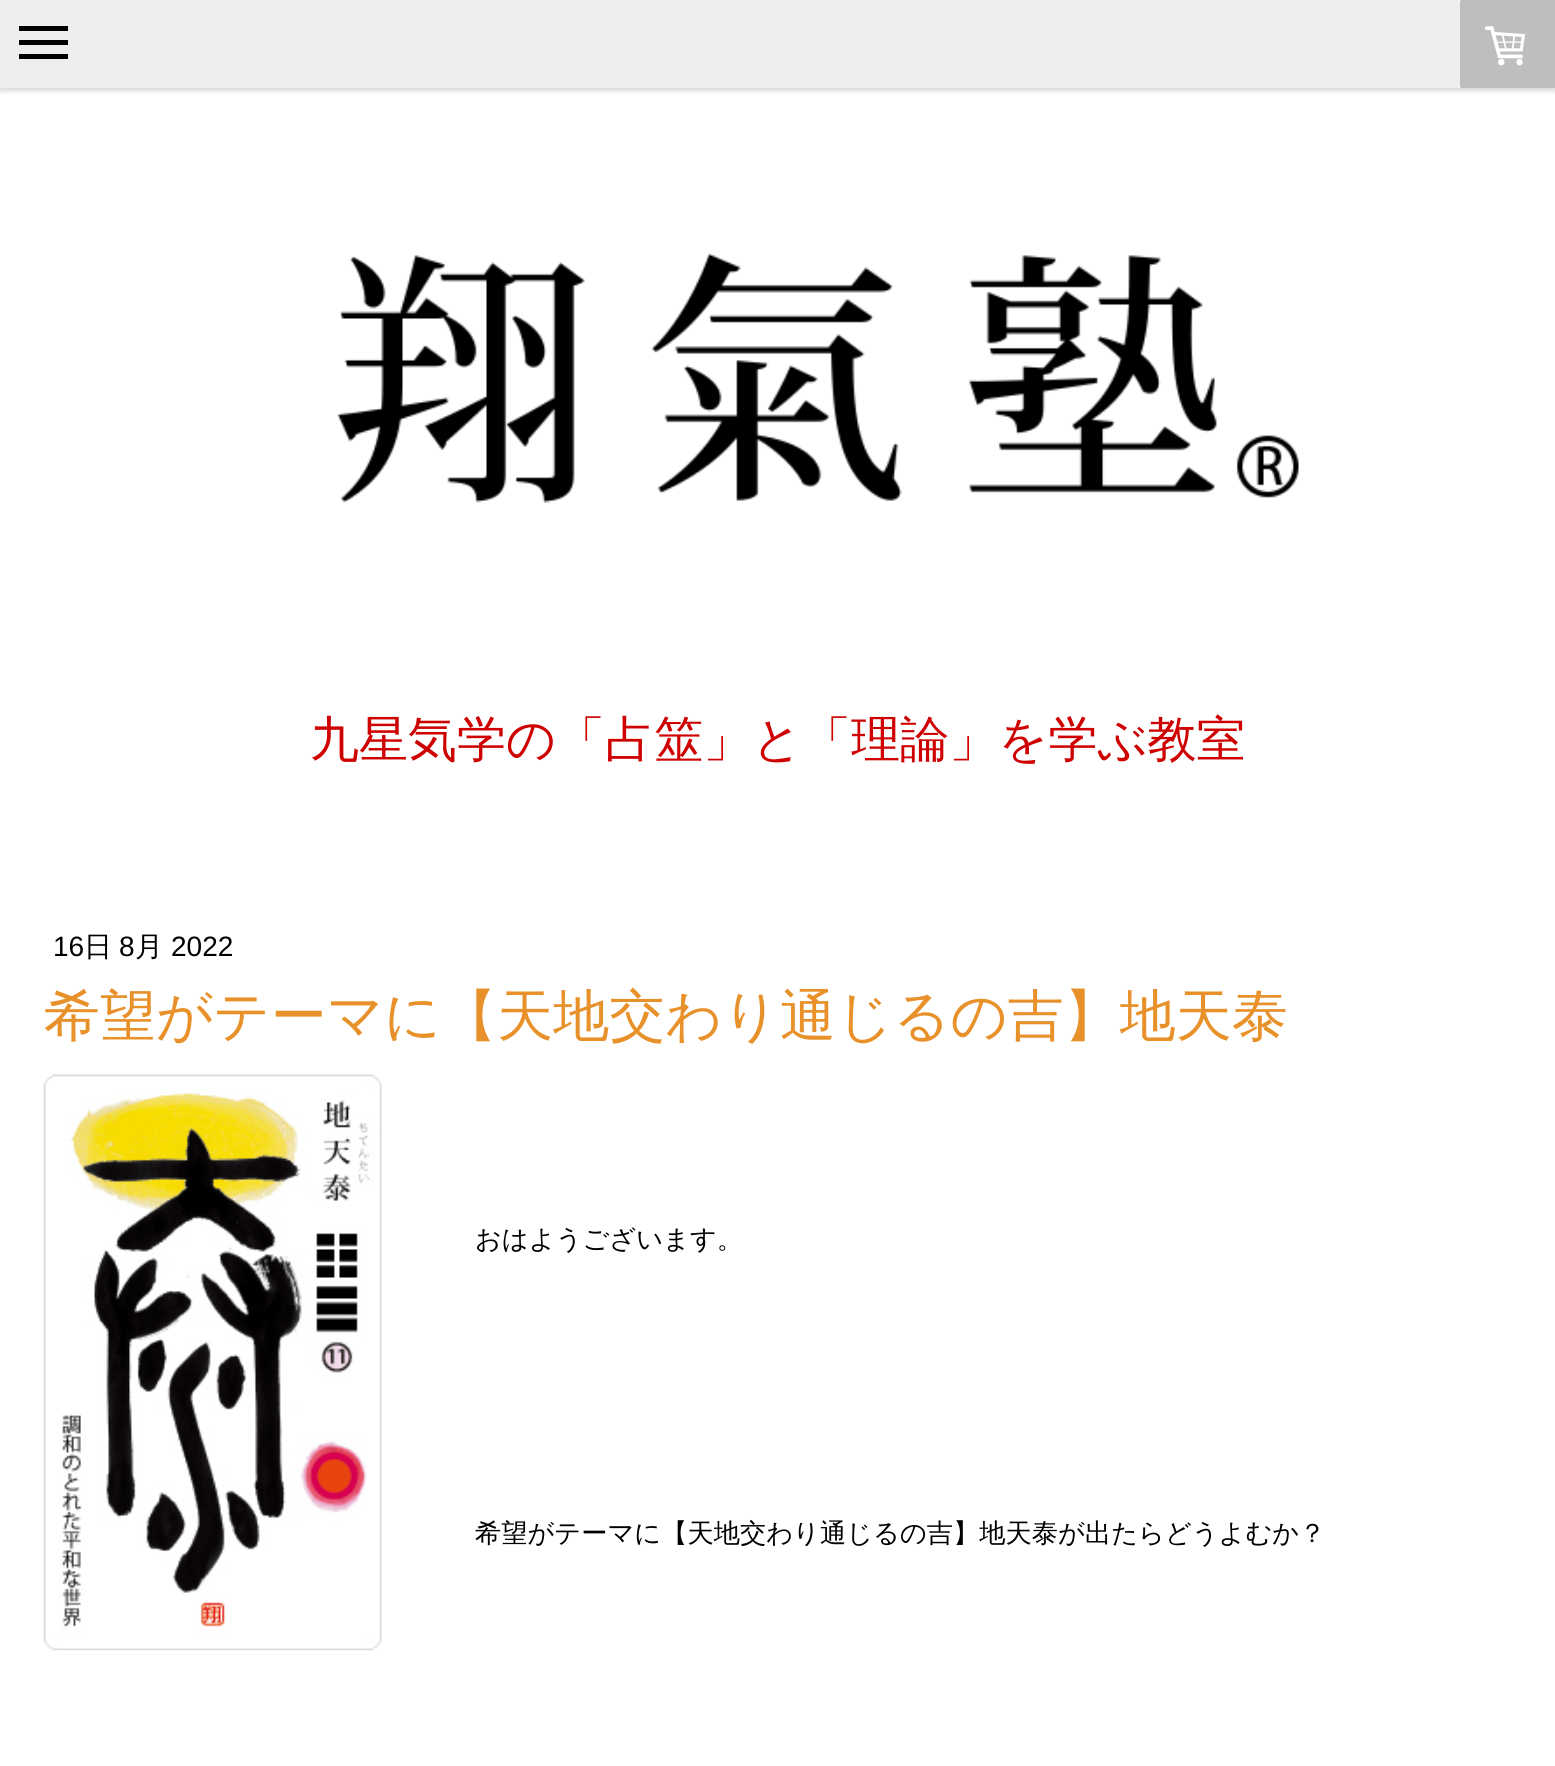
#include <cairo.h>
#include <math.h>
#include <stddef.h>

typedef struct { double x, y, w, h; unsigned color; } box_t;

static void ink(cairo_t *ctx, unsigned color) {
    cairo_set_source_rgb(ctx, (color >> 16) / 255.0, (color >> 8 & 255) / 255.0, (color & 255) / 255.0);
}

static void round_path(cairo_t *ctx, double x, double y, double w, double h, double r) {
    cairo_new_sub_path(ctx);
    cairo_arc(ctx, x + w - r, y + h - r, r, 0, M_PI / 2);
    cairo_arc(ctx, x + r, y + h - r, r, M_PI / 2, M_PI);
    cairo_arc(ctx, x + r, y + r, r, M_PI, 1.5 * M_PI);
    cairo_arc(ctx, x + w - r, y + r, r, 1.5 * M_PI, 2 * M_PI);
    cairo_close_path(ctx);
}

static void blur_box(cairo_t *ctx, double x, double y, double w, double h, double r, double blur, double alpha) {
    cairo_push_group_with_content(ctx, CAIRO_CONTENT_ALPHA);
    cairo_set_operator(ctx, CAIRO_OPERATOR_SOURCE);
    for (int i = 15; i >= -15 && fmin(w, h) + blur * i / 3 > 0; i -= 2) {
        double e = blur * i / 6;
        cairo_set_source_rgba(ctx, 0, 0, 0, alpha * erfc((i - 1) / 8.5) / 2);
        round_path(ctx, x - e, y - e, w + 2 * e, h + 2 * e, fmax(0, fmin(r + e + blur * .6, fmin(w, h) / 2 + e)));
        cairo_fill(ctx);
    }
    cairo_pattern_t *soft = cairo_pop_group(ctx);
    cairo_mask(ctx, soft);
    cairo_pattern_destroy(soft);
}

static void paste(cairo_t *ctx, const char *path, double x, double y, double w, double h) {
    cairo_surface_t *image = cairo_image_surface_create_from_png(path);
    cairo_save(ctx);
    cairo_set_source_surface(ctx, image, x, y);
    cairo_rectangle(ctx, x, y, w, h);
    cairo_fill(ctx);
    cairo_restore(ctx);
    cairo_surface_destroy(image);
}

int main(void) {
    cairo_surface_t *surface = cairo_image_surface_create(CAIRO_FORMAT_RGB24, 1555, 1766);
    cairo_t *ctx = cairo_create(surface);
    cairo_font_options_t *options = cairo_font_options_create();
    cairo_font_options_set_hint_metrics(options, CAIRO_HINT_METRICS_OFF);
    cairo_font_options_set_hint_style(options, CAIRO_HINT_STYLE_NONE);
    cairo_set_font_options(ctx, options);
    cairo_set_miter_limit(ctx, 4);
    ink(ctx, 0xFFFFFF);
    cairo_paint(ctx);
    ink(ctx, 0x000000);
    blur_box(ctx, 0, 4, 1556, 87, 0, 2.5, 0.16);
    {
        static const box_t items[] = {
            {0, 0, 1555, 88, 0xEEEEEE},
            {19, 40, 49, 5, 0x000000},
            {19, 26, 49, 5, 0x000000},
            {19, 54, 49, 5, 0x000000},
        };
        for (size_t i = 0; i < sizeof items / sizeof *items; i++) {
            ink(ctx, items[i].color);
            cairo_rectangle(ctx, items[i].x, items[i].y, items[i].w, items[i].h);
            cairo_fill(ctx);
        }
    }
    ink(ctx, 0xBEBEBE);
    round_path(ctx, 1460, 0, 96, 88, 2);
    cairo_fill(ctx);
    paste(ctx, "media/1.png", 1484, 26, 42, 40);
    paste(ctx, "media/2.png", 337, 253, 962, 250);
    cairo_select_font_face(ctx, "WenQuanYi Zen Hei Medium", CAIRO_FONT_SLANT_NORMAL, CAIRO_FONT_WEIGHT_NORMAL);
    cairo_set_font_size(ctx, 49);
    ink(ctx, 0xCE0000);
    cairo_move_to(ctx, 310, 756);
    cairo_show_text(ctx, "九星気学の「占筮」と「理論」を学ぶ教室");
    cairo_select_font_face(ctx, "Liberation Sans", CAIRO_FONT_SLANT_NORMAL, CAIRO_FONT_WEIGHT_NORMAL);
    cairo_set_font_size(ctx, 28);
    ink(ctx, 0x000000);
    cairo_move_to(ctx, 53, 956);
    cairo_show_text(ctx, "16");
    cairo_select_font_face(ctx, "WenQuanYi Zen Hei Medium", CAIRO_FONT_SLANT_NORMAL, CAIRO_FONT_WEIGHT_NORMAL);
    cairo_move_to(ctx, 84, 956);
    cairo_show_text(ctx, "日");
    cairo_select_font_face(ctx, "Liberation Sans", CAIRO_FONT_SLANT_NORMAL, CAIRO_FONT_WEIGHT_NORMAL);
    cairo_move_to(ctx, 119, 956);
    cairo_show_text(ctx, "8");
    cairo_select_font_face(ctx, "WenQuanYi Zen Hei Medium", CAIRO_FONT_SLANT_NORMAL, CAIRO_FONT_WEIGHT_NORMAL);
    cairo_move_to(ctx, 135, 956);
    cairo_show_text(ctx, "月");
    cairo_select_font_face(ctx, "Liberation Sans", CAIRO_FONT_SLANT_NORMAL, CAIRO_FONT_WEIGHT_NORMAL);
    cairo_move_to(ctx, 171, 956);
    cairo_show_text(ctx, "2022");
    cairo_select_font_face(ctx, "WenQuanYi Zen Hei Medium", CAIRO_FONT_SLANT_NORMAL, CAIRO_FONT_WEIGHT_NORMAL);
    cairo_set_font_size(ctx, 56);
    ink(ctx, 0xE8912A);
    cairo_move_to(ctx, 44, 1035);
    cairo_show_text(ctx, "希望がテーマに【天地交わり通じるの吉】地天泰");
    paste(ctx, "media/3.png", 43, 1074, 339, 577);
    cairo_set_font_size(ctx, 26.25);
    ink(ctx, 0x000000);
    cairo_move_to(ctx, 475, 1248);
    cairo_show_text(ctx, "おはようございます。");
    cairo_move_to(ctx, 475, 1542);
    cairo_show_text(ctx, "希望がテーマに【天地交わり通じるの吉】地天泰が出たらどうよむか？");
    cairo_surface_write_to_png(surface, "image.png");
    cairo_font_options_destroy(options);
    cairo_destroy(ctx);
    cairo_surface_destroy(surface);
    return 0;
}
